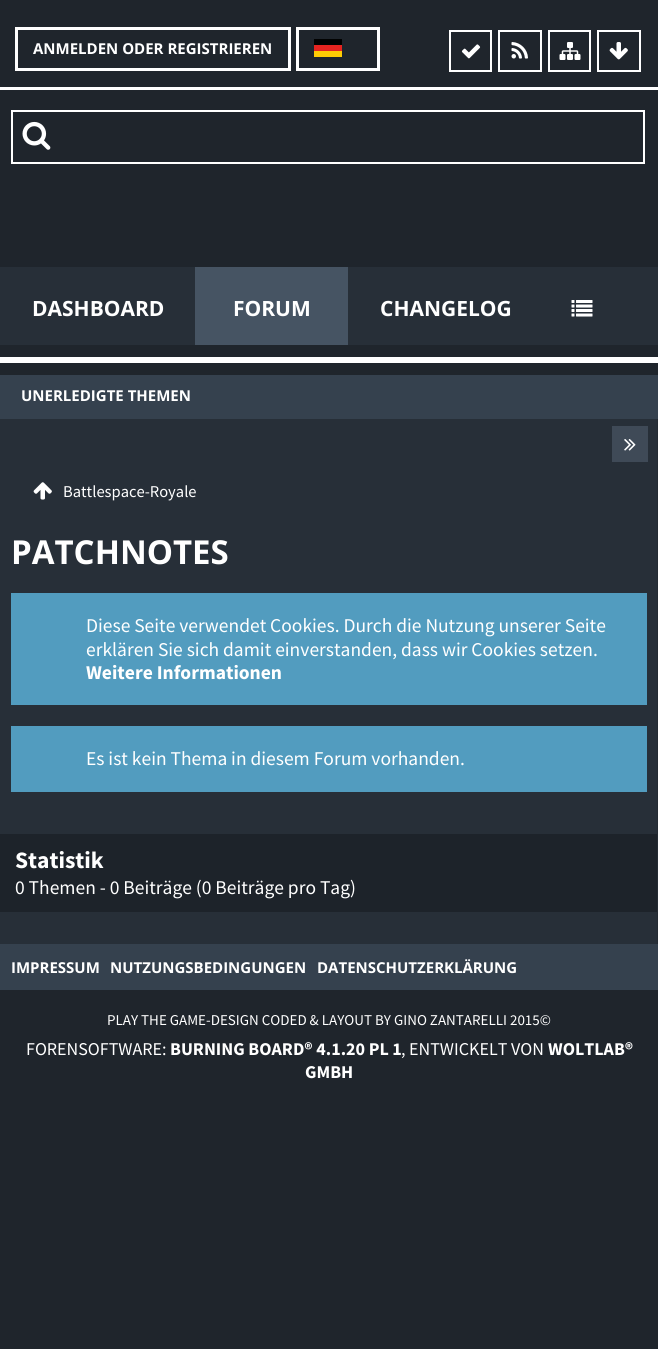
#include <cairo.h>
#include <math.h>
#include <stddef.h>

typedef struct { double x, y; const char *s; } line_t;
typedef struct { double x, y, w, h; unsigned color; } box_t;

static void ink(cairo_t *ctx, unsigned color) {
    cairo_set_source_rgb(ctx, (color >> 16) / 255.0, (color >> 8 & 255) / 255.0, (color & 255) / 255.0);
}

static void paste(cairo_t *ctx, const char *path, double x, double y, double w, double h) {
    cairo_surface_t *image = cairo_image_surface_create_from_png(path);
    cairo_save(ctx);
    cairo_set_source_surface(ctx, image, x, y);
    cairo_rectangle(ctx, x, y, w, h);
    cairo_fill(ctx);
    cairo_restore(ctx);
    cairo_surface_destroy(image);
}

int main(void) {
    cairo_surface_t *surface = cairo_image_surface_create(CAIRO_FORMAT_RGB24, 658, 1349);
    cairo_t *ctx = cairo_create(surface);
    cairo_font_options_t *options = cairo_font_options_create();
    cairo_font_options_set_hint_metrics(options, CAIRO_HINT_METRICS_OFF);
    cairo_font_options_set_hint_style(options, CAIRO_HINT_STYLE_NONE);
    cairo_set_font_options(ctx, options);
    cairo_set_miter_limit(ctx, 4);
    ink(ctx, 0x1F252C);
    cairo_paint(ctx);
    ink(ctx, 0xFFFFFF);
    cairo_rectangle(ctx, 0, 87, 658, 3);
    cairo_fill(ctx);
    cairo_rectangle(ctx, 16.5, 28.5, 273, 41);
    cairo_set_line_width(ctx, 3);
    cairo_stroke(ctx);
    cairo_select_font_face(ctx, "Open Sans", CAIRO_FONT_SLANT_NORMAL, CAIRO_FONT_WEIGHT_BOLD);
    cairo_set_font_size(ctx, 15);
    cairo_move_to(ctx, 33, 54);
    cairo_show_text(ctx, "ANMELDEN ODER REGISTRIEREN");
    cairo_rectangle(ctx, 297.5, 28.5, 81, 41);
    cairo_stroke(ctx);
    {
        static const box_t items[] = {
            {314, 39, 28, 6, 0x010202},
            {314, 45, 28, 6, 0xE52420},
            {314, 51, 28, 6, 0xFFCC04},
        };
        for (size_t i = 0; i < sizeof items / sizeof *items; i++) {
            ink(ctx, items[i].color);
            cairo_rectangle(ctx, items[i].x, items[i].y, items[i].w, items[i].h);
            cairo_fill(ctx);
        }
    }
    cairo_rectangle(ctx, 12, 111, 632, 52);
    ink(ctx, 0xFFFFFF);
    cairo_set_line_width(ctx, 2);
    cairo_stroke(ctx);
    paste(ctx, "media/1.png", 22, 121, 29, 29);
    cairo_rectangle(ctx, 0, 357, 658, 6);
    cairo_fill(ctx);
    ink(ctx, 0x272F38);
    cairo_rectangle(ctx, 0, 267, 658, 78);
    cairo_fill(ctx);
    cairo_set_font_size(ctx, 21);
    ink(ctx, 0xFFFFFF);
    cairo_move_to(ctx, 32, 316);
    cairo_show_text(ctx, "DASHBOARD");
    ink(ctx, 0x465463);
    cairo_rectangle(ctx, 195, 267, 153, 78);
    cairo_fill(ctx);
    ink(ctx, 0xFFFFFF);
    cairo_move_to(ctx, 233, 316);
    cairo_show_text(ctx, "FORUM");
    cairo_move_to(ctx, 380, 316);
    cairo_show_text(ctx, "CHANGELOG");
    paste(ctx, "media/2.png", 571, 300, 22, 17);
    ink(ctx, 0x35414E);
    cairo_rectangle(ctx, 0, 375, 658, 44);
    cairo_fill(ctx);
    cairo_rectangle(ctx, 450, 31, 41, 40);
    ink(ctx, 0xFFFFFF);
    cairo_stroke(ctx);
    paste(ctx, "media/3.png", 461, 44, 20, 15);
    cairo_rectangle(ctx, 499, 31, 42, 40);
    cairo_stroke(ctx);
    paste(ctx, "media/4.png", 511, 42, 17, 17);
    cairo_rectangle(ctx, 549, 31, 41, 40);
    cairo_stroke(ctx);
    paste(ctx, "media/5.png", 559, 42, 22, 18);
    cairo_rectangle(ctx, 598, 31, 42, 40);
    cairo_stroke(ctx);
    paste(ctx, "media/6.png", 609, 42, 19, 18);
    cairo_set_font_size(ctx, 15);
    cairo_move_to(ctx, 21, 401);
    cairo_show_text(ctx, "UNERLEDIGTE THEMEN");
    {
        static const box_t items[] = {
            {657, 419, 1, 525, 0x242B33},
            {0, 419, 657, 525, 0x272F38},
            {612, 426, 36, 36, 0x3F4A57},
        };
        for (size_t i = 0; i < sizeof items / sizeof *items; i++) {
            ink(ctx, items[i].color);
            cairo_rectangle(ctx, items[i].x, items[i].y, items[i].w, items[i].h);
            cairo_fill(ctx);
        }
    }
    paste(ctx, "media/7.png", 624, 439, 12, 12);
    paste(ctx, "media/8.png", 33, 482, 19, 18);
    cairo_select_font_face(ctx, "Source Sans Pro", CAIRO_FONT_SLANT_NORMAL, CAIRO_FONT_WEIGHT_NORMAL);
    cairo_set_font_size(ctx, 16.5);
    ink(ctx, 0xFFFFFF);
    cairo_move_to(ctx, 63, 497);
    cairo_show_text(ctx, "Battlespace-Royale");
    cairo_select_font_face(ctx, "Open Sans", CAIRO_FONT_SLANT_NORMAL, CAIRO_FONT_WEIGHT_BOLD);
    cairo_set_font_size(ctx, 33);
    cairo_move_to(ctx, 11, 564);
    cairo_show_text(ctx, "PATCHNOTES");
    ink(ctx, 0x529CBF);
    cairo_rectangle(ctx, 11, 593, 636, 112);
    cairo_fill(ctx);
    cairo_select_font_face(ctx, "Source Sans Pro", CAIRO_FONT_SLANT_NORMAL, CAIRO_FONT_WEIGHT_NORMAL);
    cairo_set_font_size(ctx, 19.5);
    ink(ctx, 0xFFFFFF);
    cairo_move_to(ctx, 86, 632);
    cairo_show_text(ctx, "Diese Seite verwendet Cookies. Durch die Nutzung unserer Seite");
    cairo_move_to(ctx, 86, 656);
    cairo_show_text(ctx, "erklären Sie sich damit einverstanden, dass wir Cookies setzen.");
    cairo_select_font_face(ctx, "Source Sans Pro", CAIRO_FONT_SLANT_NORMAL, CAIRO_FONT_WEIGHT_BOLD);
    cairo_move_to(ctx, 86, 679);
    cairo_show_text(ctx, "Weitere Informationen");
    ink(ctx, 0x529CBF);
    cairo_rectangle(ctx, 11, 726, 636, 66);
    cairo_fill(ctx);
    cairo_select_font_face(ctx, "Source Sans Pro", CAIRO_FONT_SLANT_NORMAL, CAIRO_FONT_WEIGHT_NORMAL);
    ink(ctx, 0xFFFFFF);
    cairo_move_to(ctx, 86, 765);
    cairo_show_text(ctx, "Es ist kein Thema in diesem Forum vorhanden.");
    ink(ctx, 0x1D232A);
    cairo_rectangle(ctx, 0, 834, 657, 78);
    cairo_fill(ctx);
    cairo_select_font_face(ctx, "Source Sans Pro", CAIRO_FONT_SLANT_NORMAL, CAIRO_FONT_WEIGHT_BOLD);
    cairo_set_font_size(ctx, 23.5);
    ink(ctx, 0xFFFFFF);
    cairo_move_to(ctx, 15, 868);
    cairo_show_text(ctx, "Statistik");
    cairo_select_font_face(ctx, "Source Sans Pro", CAIRO_FONT_SLANT_NORMAL, CAIRO_FONT_WEIGHT_NORMAL);
    cairo_set_font_size(ctx, 19.5);
    cairo_move_to(ctx, 15, 894);
    cairo_show_text(ctx, "0 Themen - 0 Beiträge (0 Beiträge pro Tag)");
    ink(ctx, 0x35414E);
    cairo_rectangle(ctx, 0, 944, 658, 46);
    cairo_fill(ctx);
    cairo_select_font_face(ctx, "Open Sans", CAIRO_FONT_SLANT_NORMAL, CAIRO_FONT_WEIGHT_BOLD);
    cairo_set_font_size(ctx, 15);
    ink(ctx, 0xFFFFFF);
    {
        static const line_t items[] = {
            {11, 973, "IMPRESSUM"},
            {110, 973, "NUTZUNGSBEDINGUNGEN"},
            {317, 973, "DATENSCHUTZERKLÄRUNG"},
        };
        for (size_t i = 0; i < sizeof items / sizeof *items; i++) {
            cairo_move_to(ctx, items[i].x, items[i].y);
            cairo_show_text(ctx, items[i].s);
        }
    }
    cairo_select_font_face(ctx, "Source Sans Pro", CAIRO_FONT_SLANT_NORMAL, CAIRO_FONT_WEIGHT_NORMAL);
    cairo_move_to(ctx, 107, 1025);
    cairo_show_text(ctx, "PLAY THE GAME-DESIGN CODED & LAYOUT BY GINO ZANTARELLI 2015©");
    cairo_set_font_size(ctx, 18);
    cairo_move_to(ctx, 26, 1055);
    cairo_show_text(ctx, "FORENSOFTWARE:");
    cairo_select_font_face(ctx, "Source Sans Pro", CAIRO_FONT_SLANT_NORMAL, CAIRO_FONT_WEIGHT_BOLD);
    cairo_move_to(ctx, 170, 1055);
    cairo_show_text(ctx, "BURNING BOARD® 4.1.20 PL 1");
    cairo_select_font_face(ctx, "Source Sans Pro", CAIRO_FONT_SLANT_NORMAL, CAIRO_FONT_WEIGHT_NORMAL);
    cairo_move_to(ctx, 401, 1055);
    cairo_show_text(ctx, ", ENTWICKELT VON");
    cairo_select_font_face(ctx, "Source Sans Pro", CAIRO_FONT_SLANT_NORMAL, CAIRO_FONT_WEIGHT_BOLD);
    cairo_move_to(ctx, 548, 1055);
    cairo_show_text(ctx, "WOLTLAB®");
    cairo_move_to(ctx, 305, 1078);
    cairo_show_text(ctx, "GMBH");
    cairo_surface_write_to_png(surface, "image.png");
    cairo_font_options_destroy(options);
    cairo_destroy(ctx);
    cairo_surface_destroy(surface);
    return 0;
}
